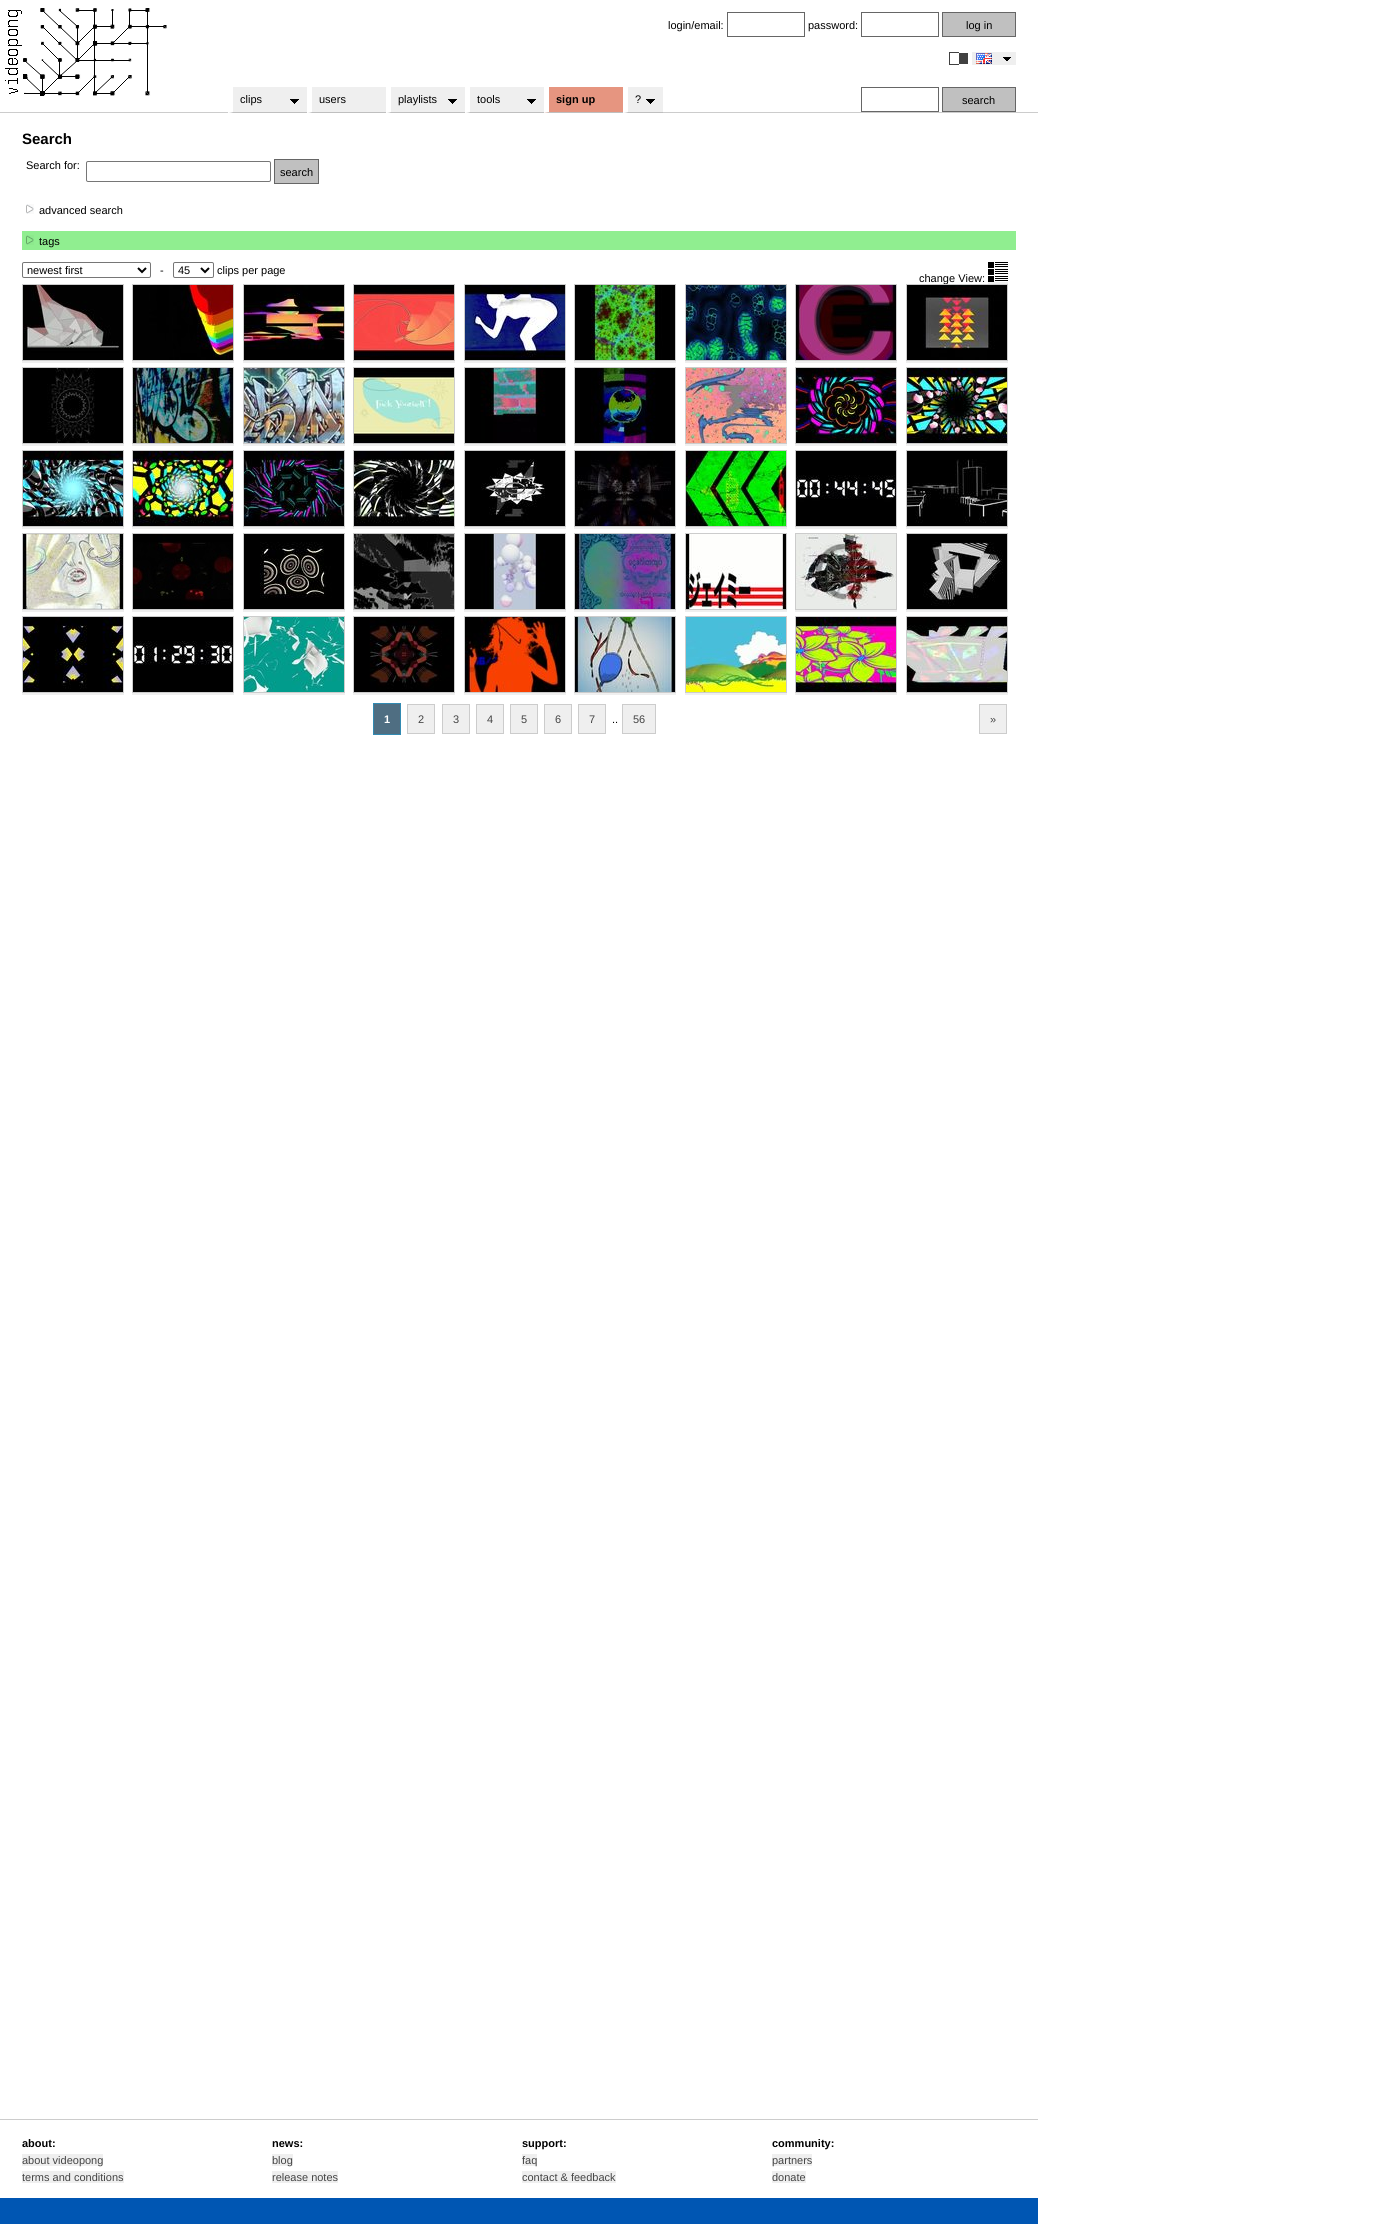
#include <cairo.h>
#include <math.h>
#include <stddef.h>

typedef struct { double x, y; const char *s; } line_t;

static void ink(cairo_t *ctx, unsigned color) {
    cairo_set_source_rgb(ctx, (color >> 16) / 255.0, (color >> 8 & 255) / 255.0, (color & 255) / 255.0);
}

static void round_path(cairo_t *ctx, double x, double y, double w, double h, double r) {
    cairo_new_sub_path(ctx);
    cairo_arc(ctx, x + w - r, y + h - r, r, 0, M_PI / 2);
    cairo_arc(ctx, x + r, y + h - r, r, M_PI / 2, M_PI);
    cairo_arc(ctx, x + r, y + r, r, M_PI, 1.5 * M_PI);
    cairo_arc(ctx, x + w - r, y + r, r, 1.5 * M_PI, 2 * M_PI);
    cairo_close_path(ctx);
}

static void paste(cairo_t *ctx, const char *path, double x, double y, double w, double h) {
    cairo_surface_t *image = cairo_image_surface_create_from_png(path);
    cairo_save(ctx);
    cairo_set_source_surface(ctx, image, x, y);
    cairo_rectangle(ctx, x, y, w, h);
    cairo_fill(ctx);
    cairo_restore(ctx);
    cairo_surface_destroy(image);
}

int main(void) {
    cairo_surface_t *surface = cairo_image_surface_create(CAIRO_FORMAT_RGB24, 1398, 2224);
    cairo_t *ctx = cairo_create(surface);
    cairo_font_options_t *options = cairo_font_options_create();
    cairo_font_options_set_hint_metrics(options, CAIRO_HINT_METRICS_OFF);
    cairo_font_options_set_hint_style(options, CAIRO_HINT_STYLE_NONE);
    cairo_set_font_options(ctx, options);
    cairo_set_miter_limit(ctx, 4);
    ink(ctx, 0xFFFFFF);
    cairo_paint(ctx);
    ink(ctx, 0xCCCCCC);
    cairo_rectangle(ctx, 0, 112, 1038, 1);
    cairo_fill(ctx);
    paste(ctx, "media/1.png", 5, 10, 17, 84);
    paste(ctx, "media/2.png", 23, 8, 144, 88);
    cairo_select_font_face(ctx, "Liberation Sans", CAIRO_FONT_SLANT_NORMAL, CAIRO_FONT_WEIGHT_NORMAL);
    cairo_set_font_size(ctx, 11);
    ink(ctx, 0x000000);
    cairo_move_to(ctx, 668, 29);
    cairo_show_text(ctx, "login/email:");
    cairo_rectangle(ctx, 727.5, 12.5, 77, 24);
    ink(ctx, 0x666666);
    cairo_set_line_width(ctx, 1);
    cairo_stroke(ctx);
    ink(ctx, 0x000000);
    cairo_move_to(ctx, 808, 29);
    cairo_show_text(ctx, "password:");
    cairo_rectangle(ctx, 861.5, 12.5, 77, 24);
    ink(ctx, 0x666666);
    cairo_stroke(ctx);
    ink(ctx, 0xC0C0C0);
    cairo_rectangle(ctx, 942.5, 12.5, 73, 24);
    cairo_fill_preserve(ctx);
    ink(ctx, 0x666666);
    cairo_stroke(ctx);
    ink(ctx, 0x000000);
    cairo_move_to(ctx, 966, 29);
    cairo_show_text(ctx, "log in");
    paste(ctx, "media/3.png", 949, 52, 19, 13);
    ink(ctx, 0xEFEFEF);
    cairo_rectangle(ctx, 972, 52, 44, 13);
    cairo_fill(ctx);
    paste(ctx, "media/4.png", 976, 53, 16, 11);
    paste(ctx, "media/5.png", 1003, 57, 8, 4);
    cairo_rectangle(ctx, 228, 87, 316, 26);
    cairo_fill(ctx);
    ink(ctx, 0xBFBFBF);
    cairo_new_path(ctx);
    cairo_move_to(ctx, 307, 113);
    cairo_line_to(ctx, 228, 113);
    cairo_line_to(ctx, 233, 112);
    cairo_line_to(ctx, 307, 112);
    cairo_close_path(ctx);
    cairo_fill(ctx);
    ink(ctx, 0xFFFFFF);
    cairo_new_path(ctx);
    cairo_move_to(ctx, 228, 113);
    cairo_line_to(ctx, 228, 87);
    cairo_line_to(ctx, 233, 87);
    cairo_line_to(ctx, 233, 112);
    cairo_close_path(ctx);
    cairo_fill(ctx);
    ink(ctx, 0x000000);
    cairo_move_to(ctx, 240, 103);
    cairo_show_text(ctx, "clips");
    paste(ctx, "media/6.png", 290, 99, 9, 5);
    ink(ctx, 0xBFBFBF);
    cairo_new_path(ctx);
    cairo_move_to(ctx, 386, 113);
    cairo_line_to(ctx, 307, 113);
    cairo_line_to(ctx, 312, 112);
    cairo_line_to(ctx, 386, 112);
    cairo_close_path(ctx);
    cairo_fill(ctx);
    ink(ctx, 0xFFFFFF);
    cairo_new_path(ctx);
    cairo_move_to(ctx, 307, 113);
    cairo_line_to(ctx, 307, 87);
    cairo_line_to(ctx, 312, 87);
    cairo_line_to(ctx, 312, 112);
    cairo_close_path(ctx);
    cairo_fill(ctx);
    ink(ctx, 0x000000);
    cairo_move_to(ctx, 319, 103);
    cairo_show_text(ctx, "users");
    ink(ctx, 0xBFBFBF);
    cairo_new_path(ctx);
    cairo_move_to(ctx, 465, 113);
    cairo_line_to(ctx, 386, 113);
    cairo_line_to(ctx, 391, 112);
    cairo_line_to(ctx, 465, 112);
    cairo_close_path(ctx);
    cairo_fill(ctx);
    ink(ctx, 0xFFFFFF);
    cairo_new_path(ctx);
    cairo_move_to(ctx, 386, 113);
    cairo_line_to(ctx, 386, 87);
    cairo_line_to(ctx, 391, 87);
    cairo_line_to(ctx, 391, 112);
    cairo_close_path(ctx);
    cairo_fill(ctx);
    ink(ctx, 0x000000);
    cairo_move_to(ctx, 398, 103);
    cairo_show_text(ctx, "playlists");
    paste(ctx, "media/6.png", 448, 99, 9, 5);
    ink(ctx, 0xBFBFBF);
    cairo_new_path(ctx);
    cairo_move_to(ctx, 544, 113);
    cairo_line_to(ctx, 465, 113);
    cairo_line_to(ctx, 470, 112);
    cairo_line_to(ctx, 544, 112);
    cairo_close_path(ctx);
    cairo_fill(ctx);
    ink(ctx, 0xFFFFFF);
    cairo_new_path(ctx);
    cairo_move_to(ctx, 465, 113);
    cairo_line_to(ctx, 465, 87);
    cairo_line_to(ctx, 470, 87);
    cairo_line_to(ctx, 470, 112);
    cairo_close_path(ctx);
    cairo_fill(ctx);
    ink(ctx, 0x000000);
    cairo_move_to(ctx, 477, 103);
    cairo_show_text(ctx, "tools");
    paste(ctx, "media/6.png", 527, 99, 9, 5);
    ink(ctx, 0xE69580);
    cairo_rectangle(ctx, 544, 87, 79, 26);
    cairo_fill(ctx);
    ink(ctx, 0xBFBFBF);
    cairo_new_path(ctx);
    cairo_move_to(ctx, 623, 113);
    cairo_line_to(ctx, 544, 113);
    cairo_line_to(ctx, 549, 112);
    cairo_line_to(ctx, 623, 112);
    cairo_close_path(ctx);
    cairo_fill(ctx);
    ink(ctx, 0xFFFFFF);
    cairo_new_path(ctx);
    cairo_move_to(ctx, 544, 113);
    cairo_line_to(ctx, 544, 87);
    cairo_line_to(ctx, 549, 87);
    cairo_line_to(ctx, 549, 112);
    cairo_close_path(ctx);
    cairo_fill(ctx);
    cairo_select_font_face(ctx, "Liberation Sans", CAIRO_FONT_SLANT_NORMAL, CAIRO_FONT_WEIGHT_BOLD);
    ink(ctx, 0x000000);
    cairo_move_to(ctx, 556, 103);
    cairo_show_text(ctx, "sign up");
    ink(ctx, 0xEFEFEF);
    cairo_rectangle(ctx, 623, 87, 40, 26);
    cairo_fill(ctx);
    ink(ctx, 0xBFBFBF);
    cairo_new_path(ctx);
    cairo_move_to(ctx, 663, 113);
    cairo_line_to(ctx, 623, 113);
    cairo_line_to(ctx, 628, 112);
    cairo_line_to(ctx, 663, 112);
    cairo_close_path(ctx);
    cairo_fill(ctx);
    ink(ctx, 0xFFFFFF);
    cairo_new_path(ctx);
    cairo_move_to(ctx, 623, 113);
    cairo_line_to(ctx, 623, 87);
    cairo_line_to(ctx, 628, 87);
    cairo_line_to(ctx, 628, 112);
    cairo_close_path(ctx);
    cairo_fill(ctx);
    cairo_select_font_face(ctx, "Liberation Sans", CAIRO_FONT_SLANT_NORMAL, CAIRO_FONT_WEIGHT_NORMAL);
    ink(ctx, 0x000000);
    cairo_move_to(ctx, 635, 103);
    cairo_show_text(ctx, "?");
    paste(ctx, "media/6.png", 646, 99, 9, 5);
    cairo_rectangle(ctx, 861.5, 87.5, 77, 24);
    ink(ctx, 0x666666);
    cairo_stroke(ctx);
    ink(ctx, 0xC0C0C0);
    cairo_rectangle(ctx, 942.5, 87.5, 73, 24);
    cairo_fill_preserve(ctx);
    ink(ctx, 0x666666);
    cairo_stroke(ctx);
    ink(ctx, 0x000000);
    cairo_move_to(ctx, 962, 104);
    cairo_show_text(ctx, "search");
    cairo_select_font_face(ctx, "Liberation Sans", CAIRO_FONT_SLANT_NORMAL, CAIRO_FONT_WEIGHT_BOLD);
    cairo_set_font_size(ctx, 15);
    cairo_move_to(ctx, 22, 144);
    cairo_show_text(ctx, "Search");
    cairo_select_font_face(ctx, "Liberation Sans", CAIRO_FONT_SLANT_NORMAL, CAIRO_FONT_WEIGHT_NORMAL);
    cairo_set_font_size(ctx, 11);
    cairo_move_to(ctx, 26, 169);
    cairo_show_text(ctx, "Search for:");
    round_path(ctx, 86.5, 161.5, 184, 20, 1.5);
    ink(ctx, 0x767676);
    cairo_stroke(ctx);
    ink(ctx, 0xC0C0C0);
    cairo_rectangle(ctx, 274.5, 159.5, 44, 24);
    cairo_fill_preserve(ctx);
    ink(ctx, 0x666666);
    cairo_stroke(ctx);
    ink(ctx, 0x000000);
    cairo_move_to(ctx, 280, 176);
    cairo_show_text(ctx, "search");
    paste(ctx, "media/7.png", 26, 204, 8, 10);
    cairo_move_to(ctx, 39, 214);
    cairo_show_text(ctx, "advanced search");
    ink(ctx, 0x90EE90);
    cairo_rectangle(ctx, 22, 231, 994, 19);
    cairo_fill(ctx);
    paste(ctx, "media/8.png", 26, 235, 8, 10);
    ink(ctx, 0x000000);
    cairo_move_to(ctx, 39, 245);
    cairo_show_text(ctx, "tags");
    round_path(ctx, 22.5, 262.5, 128, 15, 1.5);
    ink(ctx, 0x767676);
    cairo_stroke(ctx);
    cairo_new_path(ctx);
    cairo_move_to(ctx, 138, 268);
    cairo_line_to(ctx, 142, 272);
    cairo_line_to(ctx, 146, 268);
    ink(ctx, 0x000000);
    cairo_set_line_width(ctx, 2);
    cairo_stroke(ctx);
    cairo_move_to(ctx, 27, 274);
    cairo_show_text(ctx, "newest first");
    cairo_move_to(ctx, 160, 274);
    cairo_show_text(ctx, "-");
    round_path(ctx, 173.5, 262.5, 40, 15, 1.5);
    ink(ctx, 0x767676);
    cairo_set_line_width(ctx, 1);
    cairo_stroke(ctx);
    cairo_new_path(ctx);
    cairo_move_to(ctx, 201, 268);
    cairo_line_to(ctx, 205, 272);
    cairo_line_to(ctx, 209, 268);
    ink(ctx, 0x000000);
    cairo_set_line_width(ctx, 2);
    cairo_stroke(ctx);
    {
        static const line_t items[] = {
            {178, 274, "45"},
            {217, 274, "clips per page"},
            {919, 282, "change View:"},
        };
        for (size_t i = 0; i < sizeof items / sizeof *items; i++) {
            cairo_move_to(ctx, items[i].x, items[i].y);
            cairo_show_text(ctx, items[i].s);
        }
    }
    paste(ctx, "media/9.png", 988, 262, 20, 20);
    ink(ctx, 0xEFEFEF);
    cairo_rectangle(ctx, 988, 282, 20, 2);
    cairo_fill(ctx);
    cairo_rectangle(ctx, 22.5, 284.5, 101, 76);
    ink(ctx, 0xCCCCCC);
    cairo_set_line_width(ctx, 1);
    cairo_stroke(ctx);
    paste(ctx, "media/10.png", 23, 285, 100, 75);
    ink(ctx, 0xEFEFEF);
    cairo_rectangle(ctx, 22, 361, 102, 2);
    cairo_fill(ctx);
    cairo_rectangle(ctx, 132.5, 284.5, 101, 76);
    ink(ctx, 0xCCCCCC);
    cairo_stroke(ctx);
    paste(ctx, "media/11.png", 133, 285, 100, 75);
    ink(ctx, 0xEFEFEF);
    cairo_rectangle(ctx, 132, 361, 102, 2);
    cairo_fill(ctx);
    cairo_rectangle(ctx, 243.5, 284.5, 101, 76);
    ink(ctx, 0xCCCCCC);
    cairo_stroke(ctx);
    paste(ctx, "media/12.png", 244, 285, 100, 75);
    ink(ctx, 0xEFEFEF);
    cairo_rectangle(ctx, 243, 361, 102, 2);
    cairo_fill(ctx);
    cairo_rectangle(ctx, 353.5, 284.5, 101, 76);
    ink(ctx, 0xCCCCCC);
    cairo_stroke(ctx);
    paste(ctx, "media/13.png", 354, 285, 100, 75);
    ink(ctx, 0xEFEFEF);
    cairo_rectangle(ctx, 353, 361, 102, 2);
    cairo_fill(ctx);
    cairo_rectangle(ctx, 464.5, 284.5, 101, 76);
    ink(ctx, 0xCCCCCC);
    cairo_stroke(ctx);
    paste(ctx, "media/14.png", 465, 285, 100, 75);
    ink(ctx, 0xEFEFEF);
    cairo_rectangle(ctx, 464, 361, 102, 2);
    cairo_fill(ctx);
    cairo_rectangle(ctx, 574.5, 284.5, 101, 76);
    ink(ctx, 0xCCCCCC);
    cairo_stroke(ctx);
    paste(ctx, "media/15.png", 575, 285, 100, 75);
    ink(ctx, 0xEFEFEF);
    cairo_rectangle(ctx, 574, 361, 102, 2);
    cairo_fill(ctx);
    cairo_rectangle(ctx, 685.5, 284.5, 101, 76);
    ink(ctx, 0xCCCCCC);
    cairo_stroke(ctx);
    paste(ctx, "media/16.png", 686, 285, 100, 75);
    ink(ctx, 0xEFEFEF);
    cairo_rectangle(ctx, 685, 361, 102, 2);
    cairo_fill(ctx);
    cairo_rectangle(ctx, 795.5, 284.5, 101, 76);
    ink(ctx, 0xCCCCCC);
    cairo_stroke(ctx);
    paste(ctx, "media/17.png", 796, 285, 100, 75);
    ink(ctx, 0xEFEFEF);
    cairo_rectangle(ctx, 795, 361, 102, 2);
    cairo_fill(ctx);
    cairo_rectangle(ctx, 906.5, 284.5, 101, 76);
    ink(ctx, 0xCCCCCC);
    cairo_stroke(ctx);
    paste(ctx, "media/18.png", 907, 285, 100, 75);
    ink(ctx, 0xEFEFEF);
    cairo_rectangle(ctx, 906, 361, 102, 2);
    cairo_fill(ctx);
    cairo_rectangle(ctx, 22.5, 367.5, 101, 76);
    ink(ctx, 0xCCCCCC);
    cairo_stroke(ctx);
    paste(ctx, "media/19.png", 23, 368, 100, 75);
    ink(ctx, 0xEFEFEF);
    cairo_rectangle(ctx, 22, 444, 102, 2);
    cairo_fill(ctx);
    cairo_rectangle(ctx, 132.5, 367.5, 101, 76);
    ink(ctx, 0xCCCCCC);
    cairo_stroke(ctx);
    paste(ctx, "media/20.png", 133, 368, 100, 75);
    ink(ctx, 0xEFEFEF);
    cairo_rectangle(ctx, 132, 444, 102, 2);
    cairo_fill(ctx);
    cairo_rectangle(ctx, 243.5, 367.5, 101, 76);
    ink(ctx, 0xCCCCCC);
    cairo_stroke(ctx);
    paste(ctx, "media/21.png", 244, 368, 100, 75);
    ink(ctx, 0xEFEFEF);
    cairo_rectangle(ctx, 243, 444, 102, 2);
    cairo_fill(ctx);
    cairo_rectangle(ctx, 353.5, 367.5, 101, 76);
    ink(ctx, 0xCCCCCC);
    cairo_stroke(ctx);
    paste(ctx, "media/22.png", 354, 368, 100, 75);
    ink(ctx, 0xEFEFEF);
    cairo_rectangle(ctx, 353, 444, 102, 2);
    cairo_fill(ctx);
    cairo_rectangle(ctx, 464.5, 367.5, 101, 76);
    ink(ctx, 0xCCCCCC);
    cairo_stroke(ctx);
    paste(ctx, "media/23.png", 465, 368, 100, 75);
    ink(ctx, 0xEFEFEF);
    cairo_rectangle(ctx, 464, 444, 102, 2);
    cairo_fill(ctx);
    cairo_rectangle(ctx, 574.5, 367.5, 101, 76);
    ink(ctx, 0xCCCCCC);
    cairo_stroke(ctx);
    paste(ctx, "media/24.png", 575, 368, 100, 75);
    ink(ctx, 0xEFEFEF);
    cairo_rectangle(ctx, 574, 444, 102, 2);
    cairo_fill(ctx);
    cairo_rectangle(ctx, 685.5, 367.5, 101, 76);
    ink(ctx, 0xCCCCCC);
    cairo_stroke(ctx);
    paste(ctx, "media/25.png", 686, 368, 100, 75);
    ink(ctx, 0xEFEFEF);
    cairo_rectangle(ctx, 685, 444, 102, 2);
    cairo_fill(ctx);
    cairo_rectangle(ctx, 795.5, 367.5, 101, 76);
    ink(ctx, 0xCCCCCC);
    cairo_stroke(ctx);
    paste(ctx, "media/26.png", 796, 368, 100, 75);
    ink(ctx, 0xEFEFEF);
    cairo_rectangle(ctx, 795, 444, 102, 2);
    cairo_fill(ctx);
    cairo_rectangle(ctx, 906.5, 367.5, 101, 76);
    ink(ctx, 0xCCCCCC);
    cairo_stroke(ctx);
    paste(ctx, "media/27.png", 907, 368, 100, 75);
    ink(ctx, 0xEFEFEF);
    cairo_rectangle(ctx, 906, 444, 102, 2);
    cairo_fill(ctx);
    cairo_rectangle(ctx, 22.5, 450.5, 101, 76);
    ink(ctx, 0xCCCCCC);
    cairo_stroke(ctx);
    paste(ctx, "media/28.png", 23, 451, 100, 75);
    ink(ctx, 0xEFEFEF);
    cairo_rectangle(ctx, 22, 527, 102, 2);
    cairo_fill(ctx);
    cairo_rectangle(ctx, 132.5, 450.5, 101, 76);
    ink(ctx, 0xCCCCCC);
    cairo_stroke(ctx);
    paste(ctx, "media/29.png", 133, 451, 100, 75);
    ink(ctx, 0xEFEFEF);
    cairo_rectangle(ctx, 132, 527, 102, 2);
    cairo_fill(ctx);
    cairo_rectangle(ctx, 243.5, 450.5, 101, 76);
    ink(ctx, 0xCCCCCC);
    cairo_stroke(ctx);
    paste(ctx, "media/30.png", 244, 451, 100, 75);
    ink(ctx, 0xEFEFEF);
    cairo_rectangle(ctx, 243, 527, 102, 2);
    cairo_fill(ctx);
    cairo_rectangle(ctx, 353.5, 450.5, 101, 76);
    ink(ctx, 0xCCCCCC);
    cairo_stroke(ctx);
    paste(ctx, "media/31.png", 354, 451, 100, 75);
    ink(ctx, 0xEFEFEF);
    cairo_rectangle(ctx, 353, 527, 102, 2);
    cairo_fill(ctx);
    cairo_rectangle(ctx, 464.5, 450.5, 101, 76);
    ink(ctx, 0xCCCCCC);
    cairo_stroke(ctx);
    paste(ctx, "media/32.png", 465, 451, 100, 75);
    ink(ctx, 0xEFEFEF);
    cairo_rectangle(ctx, 464, 527, 102, 2);
    cairo_fill(ctx);
    cairo_rectangle(ctx, 574.5, 450.5, 101, 76);
    ink(ctx, 0xCCCCCC);
    cairo_stroke(ctx);
    paste(ctx, "media/33.png", 575, 451, 100, 75);
    ink(ctx, 0xEFEFEF);
    cairo_rectangle(ctx, 574, 527, 102, 2);
    cairo_fill(ctx);
    cairo_rectangle(ctx, 685.5, 450.5, 101, 76);
    ink(ctx, 0xCCCCCC);
    cairo_stroke(ctx);
    paste(ctx, "media/34.png", 686, 451, 100, 75);
    ink(ctx, 0xEFEFEF);
    cairo_rectangle(ctx, 685, 527, 102, 2);
    cairo_fill(ctx);
    cairo_rectangle(ctx, 795.5, 450.5, 101, 76);
    ink(ctx, 0xCCCCCC);
    cairo_stroke(ctx);
    paste(ctx, "media/35.png", 796, 451, 100, 75);
    ink(ctx, 0xEFEFEF);
    cairo_rectangle(ctx, 795, 527, 102, 2);
    cairo_fill(ctx);
    cairo_rectangle(ctx, 906.5, 450.5, 101, 76);
    ink(ctx, 0xCCCCCC);
    cairo_stroke(ctx);
    paste(ctx, "media/36.png", 907, 451, 100, 75);
    ink(ctx, 0xEFEFEF);
    cairo_rectangle(ctx, 906, 527, 102, 2);
    cairo_fill(ctx);
    cairo_rectangle(ctx, 22.5, 533.5, 101, 76);
    ink(ctx, 0xCCCCCC);
    cairo_stroke(ctx);
    paste(ctx, "media/37.png", 23, 534, 100, 75);
    ink(ctx, 0xEFEFEF);
    cairo_rectangle(ctx, 22, 610, 102, 2);
    cairo_fill(ctx);
    cairo_rectangle(ctx, 132.5, 533.5, 101, 76);
    ink(ctx, 0xCCCCCC);
    cairo_stroke(ctx);
    paste(ctx, "media/38.png", 133, 534, 100, 75);
    ink(ctx, 0xEFEFEF);
    cairo_rectangle(ctx, 132, 610, 102, 2);
    cairo_fill(ctx);
    cairo_rectangle(ctx, 243.5, 533.5, 101, 76);
    ink(ctx, 0xCCCCCC);
    cairo_stroke(ctx);
    paste(ctx, "media/39.png", 244, 534, 100, 75);
    ink(ctx, 0xEFEFEF);
    cairo_rectangle(ctx, 243, 610, 102, 2);
    cairo_fill(ctx);
    cairo_rectangle(ctx, 353.5, 533.5, 101, 76);
    ink(ctx, 0xCCCCCC);
    cairo_stroke(ctx);
    paste(ctx, "media/40.png", 354, 534, 100, 75);
    ink(ctx, 0xEFEFEF);
    cairo_rectangle(ctx, 353, 610, 102, 2);
    cairo_fill(ctx);
    cairo_rectangle(ctx, 464.5, 533.5, 101, 76);
    ink(ctx, 0xCCCCCC);
    cairo_stroke(ctx);
    paste(ctx, "media/41.png", 465, 534, 100, 75);
    ink(ctx, 0xEFEFEF);
    cairo_rectangle(ctx, 464, 610, 102, 2);
    cairo_fill(ctx);
    cairo_rectangle(ctx, 574.5, 533.5, 101, 76);
    ink(ctx, 0xCCCCCC);
    cairo_stroke(ctx);
    paste(ctx, "media/42.png", 575, 534, 100, 75);
    ink(ctx, 0xEFEFEF);
    cairo_rectangle(ctx, 574, 610, 102, 2);
    cairo_fill(ctx);
    cairo_rectangle(ctx, 685.5, 533.5, 101, 76);
    ink(ctx, 0xCCCCCC);
    cairo_stroke(ctx);
    paste(ctx, "media/43.png", 686, 534, 100, 75);
    ink(ctx, 0xEFEFEF);
    cairo_rectangle(ctx, 685, 610, 102, 2);
    cairo_fill(ctx);
    cairo_rectangle(ctx, 795.5, 533.5, 101, 76);
    ink(ctx, 0xCCCCCC);
    cairo_stroke(ctx);
    paste(ctx, "media/44.png", 796, 534, 100, 75);
    ink(ctx, 0xEFEFEF);
    cairo_rectangle(ctx, 795, 610, 102, 2);
    cairo_fill(ctx);
    cairo_rectangle(ctx, 906.5, 533.5, 101, 76);
    ink(ctx, 0xCCCCCC);
    cairo_stroke(ctx);
    paste(ctx, "media/45.png", 907, 534, 100, 75);
    ink(ctx, 0xEFEFEF);
    cairo_rectangle(ctx, 906, 610, 102, 2);
    cairo_fill(ctx);
    cairo_rectangle(ctx, 22.5, 616.5, 101, 76);
    ink(ctx, 0xCCCCCC);
    cairo_stroke(ctx);
    paste(ctx, "media/46.png", 23, 617, 100, 75);
    ink(ctx, 0xEFEFEF);
    cairo_rectangle(ctx, 22, 693, 102, 2);
    cairo_fill(ctx);
    cairo_rectangle(ctx, 132.5, 616.5, 101, 76);
    ink(ctx, 0xCCCCCC);
    cairo_stroke(ctx);
    paste(ctx, "media/47.png", 133, 617, 100, 75);
    ink(ctx, 0xEFEFEF);
    cairo_rectangle(ctx, 132, 693, 102, 2);
    cairo_fill(ctx);
    cairo_rectangle(ctx, 243.5, 616.5, 101, 76);
    ink(ctx, 0xCCCCCC);
    cairo_stroke(ctx);
    paste(ctx, "media/48.png", 244, 617, 100, 75);
    ink(ctx, 0xEFEFEF);
    cairo_rectangle(ctx, 243, 693, 102, 2);
    cairo_fill(ctx);
    cairo_rectangle(ctx, 353.5, 616.5, 101, 76);
    ink(ctx, 0xCCCCCC);
    cairo_stroke(ctx);
    paste(ctx, "media/49.png", 354, 617, 100, 75);
    ink(ctx, 0xEFEFEF);
    cairo_rectangle(ctx, 353, 693, 102, 2);
    cairo_fill(ctx);
    cairo_rectangle(ctx, 464.5, 616.5, 101, 76);
    ink(ctx, 0xCCCCCC);
    cairo_stroke(ctx);
    paste(ctx, "media/50.png", 465, 617, 100, 75);
    ink(ctx, 0xEFEFEF);
    cairo_rectangle(ctx, 464, 693, 102, 2);
    cairo_fill(ctx);
    cairo_rectangle(ctx, 574.5, 616.5, 101, 76);
    ink(ctx, 0xCCCCCC);
    cairo_stroke(ctx);
    paste(ctx, "media/51.png", 575, 617, 100, 75);
    ink(ctx, 0xEFEFEF);
    cairo_rectangle(ctx, 574, 693, 102, 2);
    cairo_fill(ctx);
    cairo_rectangle(ctx, 685.5, 616.5, 101, 76);
    ink(ctx, 0xCCCCCC);
    cairo_stroke(ctx);
    paste(ctx, "media/52.png", 686, 617, 100, 75);
    ink(ctx, 0xEFEFEF);
    cairo_rectangle(ctx, 685, 693, 102, 2);
    cairo_fill(ctx);
    cairo_rectangle(ctx, 795.5, 616.5, 101, 76);
    ink(ctx, 0xCCCCCC);
    cairo_stroke(ctx);
    paste(ctx, "media/53.png", 796, 617, 100, 75);
    ink(ctx, 0xEFEFEF);
    cairo_rectangle(ctx, 795, 693, 102, 2);
    cairo_fill(ctx);
    cairo_rectangle(ctx, 906.5, 616.5, 101, 76);
    ink(ctx, 0xCCCCCC);
    cairo_stroke(ctx);
    paste(ctx, "media/54.png", 907, 617, 100, 75);
    ink(ctx, 0xEFEFEF);
    cairo_rectangle(ctx, 906, 693, 102, 2);
    cairo_fill(ctx);
    ink(ctx, 0x4F6E82);
    cairo_rectangle(ctx, 373.5, 703.5, 27, 31);
    cairo_fill_preserve(ctx);
    ink(ctx, 0x328AB2);
    cairo_stroke(ctx);
    cairo_select_font_face(ctx, "Liberation Sans", CAIRO_FONT_SLANT_NORMAL, CAIRO_FONT_WEIGHT_BOLD);
    ink(ctx, 0xFFFFFF);
    cairo_move_to(ctx, 384, 723);
    cairo_show_text(ctx, "1");
    ink(ctx, 0xEFEFEF);
    cairo_rectangle(ctx, 407.5, 704.5, 27, 29);
    cairo_fill_preserve(ctx);
    ink(ctx, 0xCCCCCC);
    cairo_stroke(ctx);
    cairo_select_font_face(ctx, "Liberation Sans", CAIRO_FONT_SLANT_NORMAL, CAIRO_FONT_WEIGHT_NORMAL);
    ink(ctx, 0x444444);
    cairo_move_to(ctx, 418, 723);
    cairo_show_text(ctx, "2");
    ink(ctx, 0xEFEFEF);
    cairo_rectangle(ctx, 442.5, 704.5, 27, 29);
    cairo_fill_preserve(ctx);
    ink(ctx, 0xCCCCCC);
    cairo_stroke(ctx);
    ink(ctx, 0x444444);
    cairo_move_to(ctx, 453, 723);
    cairo_show_text(ctx, "3");
    ink(ctx, 0xEFEFEF);
    cairo_rectangle(ctx, 476.5, 704.5, 27, 29);
    cairo_fill_preserve(ctx);
    ink(ctx, 0xCCCCCC);
    cairo_stroke(ctx);
    ink(ctx, 0x444444);
    cairo_move_to(ctx, 487, 723);
    cairo_show_text(ctx, "4");
    ink(ctx, 0xEFEFEF);
    cairo_rectangle(ctx, 510.5, 704.5, 27, 29);
    cairo_fill_preserve(ctx);
    ink(ctx, 0xCCCCCC);
    cairo_stroke(ctx);
    ink(ctx, 0x444444);
    cairo_move_to(ctx, 521, 723);
    cairo_show_text(ctx, "5");
    ink(ctx, 0xEFEFEF);
    cairo_rectangle(ctx, 544.5, 704.5, 27, 29);
    cairo_fill_preserve(ctx);
    ink(ctx, 0xCCCCCC);
    cairo_stroke(ctx);
    ink(ctx, 0x444444);
    cairo_move_to(ctx, 555, 723);
    cairo_show_text(ctx, "6");
    ink(ctx, 0xEFEFEF);
    cairo_rectangle(ctx, 578.5, 704.5, 27, 29);
    cairo_fill_preserve(ctx);
    ink(ctx, 0xCCCCCC);
    cairo_stroke(ctx);
    ink(ctx, 0x444444);
    cairo_move_to(ctx, 589, 723);
    cairo_show_text(ctx, "7");
    ink(ctx, 0x000000);
    cairo_move_to(ctx, 612, 723);
    cairo_show_text(ctx, "..");
    ink(ctx, 0xEFEFEF);
    cairo_rectangle(ctx, 622.5, 704.5, 33, 29);
    cairo_fill_preserve(ctx);
    ink(ctx, 0xCCCCCC);
    cairo_stroke(ctx);
    ink(ctx, 0x444444);
    cairo_move_to(ctx, 633, 723);
    cairo_show_text(ctx, "56");
    ink(ctx, 0xEFEFEF);
    cairo_rectangle(ctx, 979.5, 704.5, 27, 29);
    cairo_fill_preserve(ctx);
    ink(ctx, 0xCCCCCC);
    cairo_stroke(ctx);
    ink(ctx, 0x444444);
    cairo_move_to(ctx, 990, 723);
    cairo_show_text(ctx, "»");
    ink(ctx, 0xCCCCCC);
    cairo_rectangle(ctx, 0, 2119, 1038, 1);
    cairo_fill(ctx);
    cairo_select_font_face(ctx, "Liberation Sans", CAIRO_FONT_SLANT_NORMAL, CAIRO_FONT_WEIGHT_BOLD);
    ink(ctx, 0x000000);
    cairo_move_to(ctx, 22, 2147);
    cairo_show_text(ctx, "about:");
    ink(ctx, 0xEFEFEF);
    cairo_rectangle(ctx, 22, 2154, 81, 12);
    cairo_fill(ctx);
    cairo_select_font_face(ctx, "Liberation Sans", CAIRO_FONT_SLANT_NORMAL, CAIRO_FONT_WEIGHT_NORMAL);
    ink(ctx, 0x444444);
    cairo_move_to(ctx, 22, 2164);
    cairo_show_text(ctx, "about videopong");
    ink(ctx, 0xEFEFEF);
    cairo_rectangle(ctx, 22, 2171, 102, 12);
    cairo_fill(ctx);
    ink(ctx, 0x444444);
    cairo_move_to(ctx, 22, 2181);
    cairo_show_text(ctx, "terms and conditions");
    cairo_select_font_face(ctx, "Liberation Sans", CAIRO_FONT_SLANT_NORMAL, CAIRO_FONT_WEIGHT_BOLD);
    ink(ctx, 0x000000);
    cairo_move_to(ctx, 272, 2147);
    cairo_show_text(ctx, "news:");
    ink(ctx, 0xEFEFEF);
    cairo_rectangle(ctx, 272, 2154, 21, 12);
    cairo_fill(ctx);
    cairo_select_font_face(ctx, "Liberation Sans", CAIRO_FONT_SLANT_NORMAL, CAIRO_FONT_WEIGHT_NORMAL);
    ink(ctx, 0x444444);
    cairo_move_to(ctx, 272, 2164);
    cairo_show_text(ctx, "blog");
    ink(ctx, 0xEFEFEF);
    cairo_rectangle(ctx, 272, 2171, 66, 12);
    cairo_fill(ctx);
    ink(ctx, 0x444444);
    cairo_move_to(ctx, 272, 2181);
    cairo_show_text(ctx, "release notes");
    cairo_select_font_face(ctx, "Liberation Sans", CAIRO_FONT_SLANT_NORMAL, CAIRO_FONT_WEIGHT_BOLD);
    ink(ctx, 0x000000);
    cairo_move_to(ctx, 522, 2147);
    cairo_show_text(ctx, "support:");
    ink(ctx, 0xEFEFEF);
    cairo_rectangle(ctx, 522, 2154, 15, 12);
    cairo_fill(ctx);
    cairo_select_font_face(ctx, "Liberation Sans", CAIRO_FONT_SLANT_NORMAL, CAIRO_FONT_WEIGHT_NORMAL);
    ink(ctx, 0x444444);
    cairo_move_to(ctx, 522, 2164);
    cairo_show_text(ctx, "faq");
    ink(ctx, 0xEFEFEF);
    cairo_rectangle(ctx, 522, 2171, 94, 12);
    cairo_fill(ctx);
    ink(ctx, 0x444444);
    cairo_move_to(ctx, 522, 2181);
    cairo_show_text(ctx, "contact & feedback");
    cairo_select_font_face(ctx, "Liberation Sans", CAIRO_FONT_SLANT_NORMAL, CAIRO_FONT_WEIGHT_BOLD);
    ink(ctx, 0x000000);
    cairo_move_to(ctx, 772, 2147);
    cairo_show_text(ctx, "community:");
    ink(ctx, 0xEFEFEF);
    cairo_rectangle(ctx, 772, 2154, 40, 12);
    cairo_fill(ctx);
    cairo_select_font_face(ctx, "Liberation Sans", CAIRO_FONT_SLANT_NORMAL, CAIRO_FONT_WEIGHT_NORMAL);
    ink(ctx, 0x444444);
    cairo_move_to(ctx, 772, 2164);
    cairo_show_text(ctx, "partners");
    ink(ctx, 0xEFEFEF);
    cairo_rectangle(ctx, 772, 2171, 34, 12);
    cairo_fill(ctx);
    ink(ctx, 0x444444);
    cairo_move_to(ctx, 772, 2181);
    cairo_show_text(ctx, "donate");
    ink(ctx, 0x0056B3);
    cairo_rectangle(ctx, 0, 2198, 1038, 26);
    cairo_fill(ctx);
    cairo_surface_write_to_png(surface, "image.png");
    cairo_font_options_destroy(options);
    cairo_destroy(ctx);
    cairo_surface_destroy(surface);
    return 0;
}
